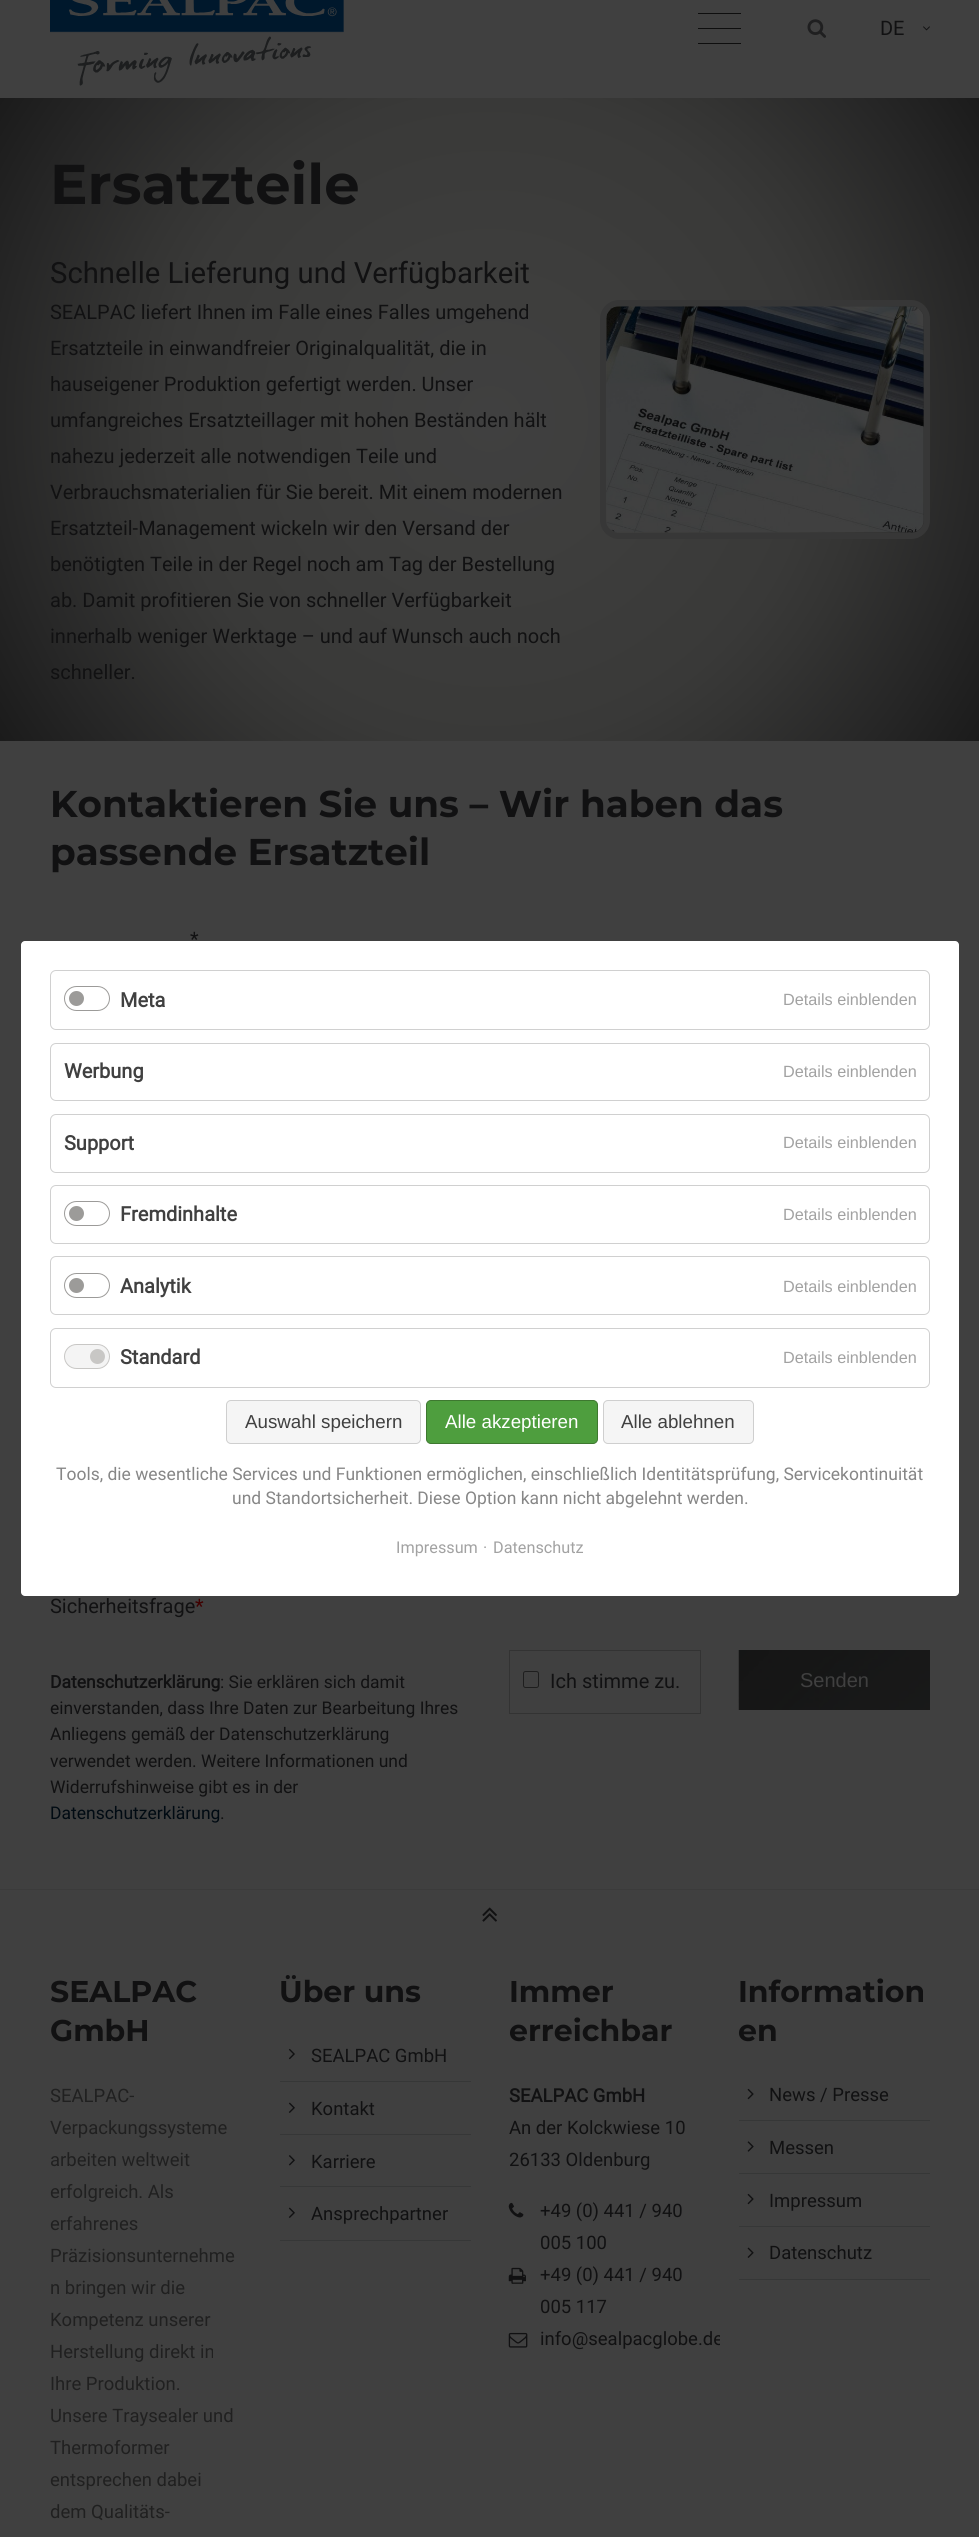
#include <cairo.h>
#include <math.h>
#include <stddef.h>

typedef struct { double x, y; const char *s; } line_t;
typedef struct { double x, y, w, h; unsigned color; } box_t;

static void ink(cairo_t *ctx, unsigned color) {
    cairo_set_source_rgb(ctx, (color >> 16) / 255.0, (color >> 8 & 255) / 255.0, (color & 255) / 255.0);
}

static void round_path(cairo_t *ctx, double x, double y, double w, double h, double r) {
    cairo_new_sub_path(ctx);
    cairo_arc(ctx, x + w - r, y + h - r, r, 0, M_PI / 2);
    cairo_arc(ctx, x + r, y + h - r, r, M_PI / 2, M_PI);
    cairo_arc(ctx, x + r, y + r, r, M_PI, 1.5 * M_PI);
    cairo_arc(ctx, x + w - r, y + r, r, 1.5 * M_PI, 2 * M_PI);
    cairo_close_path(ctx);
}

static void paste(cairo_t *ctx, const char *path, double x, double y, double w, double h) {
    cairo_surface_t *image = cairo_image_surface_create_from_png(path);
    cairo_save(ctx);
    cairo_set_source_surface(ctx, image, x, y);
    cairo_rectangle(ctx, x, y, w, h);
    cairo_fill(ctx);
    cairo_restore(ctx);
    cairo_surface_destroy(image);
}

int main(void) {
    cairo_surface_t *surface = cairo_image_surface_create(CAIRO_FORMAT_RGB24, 979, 2537);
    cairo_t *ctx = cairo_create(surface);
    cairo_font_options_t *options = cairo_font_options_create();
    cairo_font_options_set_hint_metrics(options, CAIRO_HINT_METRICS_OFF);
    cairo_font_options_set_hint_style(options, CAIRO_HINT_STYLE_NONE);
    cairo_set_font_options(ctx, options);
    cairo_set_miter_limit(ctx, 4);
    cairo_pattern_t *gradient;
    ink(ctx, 0x404040);
    cairo_paint(ctx);
    paste(ctx, "media/1.png", 50, 0, 294, 86);
    {
        static const box_t items[] = {
            {698, 28, 43, 1, 0x0E0E0E},
            {698, 13, 43, 1, 0x0E0E0E},
            {698, 43, 43, 1, 0x0E0E0E},
        };
        for (size_t i = 0; i < sizeof items / sizeof *items; i++) {
            ink(ctx, items[i].color);
            cairo_rectangle(ctx, items[i].x, items[i].y, items[i].w, items[i].h);
            cairo_fill(ctx);
        }
    }
    paste(ctx, "media/2.png", 807, 19, 19, 19);
    cairo_select_font_face(ctx, "Roboto", CAIRO_FONT_SLANT_NORMAL, CAIRO_FONT_WEIGHT_NORMAL);
    cairo_set_font_size(ctx, 20);
    ink(ctx, 0x111112);
    cairo_move_to(ctx, 880, 35);
    cairo_show_text(ctx, "DE");
    paste(ctx, "media/3.png", 923, 26, 7, 5);
    gradient = cairo_pattern_create_radial(490, 419, 0, 490, 419, 700);
    cairo_pattern_add_color_stop_rgba(gradient, 0, 0.251, 0.251, 0.251, 1);
    cairo_pattern_add_color_stop_rgba(gradient, 0.19, 0.243, 0.243, 0.239, 1);
    cairo_pattern_add_color_stop_rgba(gradient, 0.46, 0.224, 0.224, 0.22, 1);
    cairo_pattern_add_color_stop_rgba(gradient, 0.54, 0.204, 0.204, 0.2, 1);
    cairo_pattern_add_color_stop_rgba(gradient, 0.71, 0.149, 0.149, 0.149, 1);
    cairo_pattern_add_color_stop_rgba(gradient, 0.95, 0.067, 0.067, 0.067, 1);
    cairo_pattern_add_color_stop_rgba(gradient, 1, 0.051, 0.051, 0.047, 1);
    cairo_set_source(ctx, gradient);
    cairo_pattern_destroy(gradient);
    cairo_rectangle(ctx, 0, 98, 979, 643);
    cairo_fill(ctx);
    cairo_select_font_face(ctx, "Montserrat", CAIRO_FONT_SLANT_NORMAL, CAIRO_FONT_WEIGHT_BOLD);
    cairo_set_font_size(ctx, 56);
    ink(ctx, 0x111112);
    cairo_move_to(ctx, 50, 204);
    cairo_show_text(ctx, "Ersatzteile");
    cairo_select_font_face(ctx, "Roboto", CAIRO_FONT_SLANT_NORMAL, CAIRO_FONT_WEIGHT_NORMAL);
    cairo_set_font_size(ctx, 29.3);
    cairo_move_to(ctx, 50, 283);
    cairo_show_text(ctx, "Schnelle Lieferung und Verfügbarkeit");
    cairo_set_font_size(ctx, 20);
    {
        static const line_t items[] = {
            {50, 319, "SEALPAC liefert Ihnen im Falle eines Falles umgehend"},
            {50, 355, "Ersatzteile in einwandfreier Originalqualität, die in"},
            {50, 391, "hauseigener Produktion gefertigt werden. Unser"},
            {50, 427, "umfangreiches Ersatzteillager mit hohen Beständen hält"},
            {50, 463, "nahezu jederzeit alle notwendigen Teile und"},
            {50, 499, "Verbrauchsmaterialien für Sie bereit. Mit einem modernen"},
            {50, 535, "Ersatzteil-Management wickeln wir den Versand der"},
            {50, 571, "benötigten Teile in der Regel noch am Tag der Bestellung"},
            {50, 607, "ab. Damit profitieren Sie von schneller Verfügbarkeit"},
            {50, 643, "innerhalb weniger Werktage – und auf Wunsch auch noch"},
            {50, 679, "schneller."},
        };
        for (size_t i = 0; i < sizeof items / sizeof *items; i++) {
            cairo_move_to(ctx, items[i].x, items[i].y);
            cairo_show_text(ctx, items[i].s);
        }
    }
    round_path(ctx, 603, 303, 324, 233, 16);
    ink(ctx, 0x373737);
    cairo_set_line_width(ctx, 6);
    cairo_stroke(ctx);
    paste(ctx, "media/4.png", 606, 306, 318, 227);
    cairo_select_font_face(ctx, "Montserrat", CAIRO_FONT_SLANT_NORMAL, CAIRO_FONT_WEIGHT_BOLD);
    cairo_set_font_size(ctx, 37.3);
    ink(ctx, 0x111112);
    cairo_move_to(ctx, 50, 817);
    cairo_show_text(ctx, "Kontaktieren Sie uns – Wir haben das");
    cairo_move_to(ctx, 50, 865);
    cairo_show_text(ctx, "passende Ersatzteil");
    cairo_select_font_face(ctx, "Roboto", CAIRO_FONT_SLANT_NORMAL, CAIRO_FONT_WEIGHT_NORMAL);
    cairo_set_font_size(ctx, 20);
    cairo_move_to(ctx, 190, 946);
    cairo_show_text(ctx, "*");
    cairo_move_to(ctx, 50, 1613);
    cairo_show_text(ctx, "Sicherheitsfrage");
    ink(ctx, 0x400000);
    cairo_move_to(ctx, 195, 1613);
    cairo_show_text(ctx, "*");
    cairo_select_font_face(ctx, "Roboto", CAIRO_FONT_SLANT_NORMAL, CAIRO_FONT_WEIGHT_BOLD);
    cairo_set_font_size(ctx, 17.5);
    ink(ctx, 0x111112);
    cairo_move_to(ctx, 50, 1688);
    cairo_show_text(ctx, "Datenschutzerklärung");
    cairo_select_font_face(ctx, "Roboto", CAIRO_FONT_SLANT_NORMAL, CAIRO_FONT_WEIGHT_NORMAL);
    {
        static const line_t items[] = {
            {220, 1688, ": Sie erklären sich damit"},
            {50, 1714, "einverstanden, dass Ihre Daten zur Bearbeitung Ihres"},
            {50, 1740, "Anliegens gemäß der Datenschutzerklärung"},
            {50, 1767, "verwendet werden. Weitere Informationen und"},
            {50, 1793, "Widerrufshinweise gibt es in der"},
        };
        for (size_t i = 0; i < sizeof items / sizeof *items; i++) {
            cairo_move_to(ctx, items[i].x, items[i].y);
            cairo_show_text(ctx, items[i].s);
        }
    }
    ink(ctx, 0x000A12);
    cairo_move_to(ctx, 50, 1819);
    cairo_show_text(ctx, "Datenschutzerklärung");
    ink(ctx, 0x111112);
    cairo_move_to(ctx, 220, 1819);
    cairo_show_text(ctx, ".");
    cairo_rectangle(ctx, 509.5, 1650.5, 191, 63);
    ink(ctx, 0x333333);
    cairo_set_line_width(ctx, 1);
    cairo_stroke(ctx);
    round_path(ctx, 523.5, 1671.5, 15, 16, 2);
    ink(ctx, 0x1E1E1E);
    cairo_stroke(ctx);
    cairo_set_font_size(ctx, 20);
    ink(ctx, 0x111112);
    cairo_move_to(ctx, 550, 1688);
    cairo_show_text(ctx, "Ich stimme zu.");
    paste(ctx, "media/5.png", 738, 1650, 192, 60);
    cairo_select_font_face(ctx, "Liberation Sans", CAIRO_FONT_SLANT_NORMAL, CAIRO_FONT_WEIGHT_NORMAL);
    ink(ctx, 0x404040);
    cairo_move_to(ctx, 800, 1687);
    cairo_show_text(ctx, "Senden");
    ink(ctx, 0x3B3B3B);
    cairo_rectangle(ctx, 0, 1889, 979, 1);
    cairo_fill(ctx);
    paste(ctx, "media/6.png", 482, 1907, 15, 15);
    cairo_select_font_face(ctx, "Montserrat", CAIRO_FONT_SLANT_NORMAL, CAIRO_FONT_WEIGHT_BOLD);
    cairo_set_font_size(ctx, 30);
    ink(ctx, 0x111112);
    cairo_move_to(ctx, 50, 2002);
    cairo_show_text(ctx, "SEALPAC");
    cairo_move_to(ctx, 50, 2041);
    cairo_show_text(ctx, "GmbH");
    cairo_select_font_face(ctx, "Roboto", CAIRO_FONT_SLANT_NORMAL, CAIRO_FONT_WEIGHT_NORMAL);
    cairo_set_font_size(ctx, 18.5);
    ink(ctx, 0x202020);
    {
        static const line_t items[] = {
            {50, 2102, "SEALPAC-"},
            {50, 2134, "Verpackungssysteme"},
            {50, 2166, "arbeiten weltweit"},
            {50, 2198, "erfolgreich. Als"},
            {50, 2230, "erfahrenes"},
            {50, 2262, "Präzisionsunternehme"},
            {50, 2294, "n bringen wir die"},
            {50, 2326, "Kompetenz unserer"},
            {50, 2358, "Herstellung direkt in"},
            {50, 2390, "Ihre Produktion."},
            {50, 2422, "Unsere Traysealer und"},
            {50, 2454, "Thermoformer"},
            {50, 2486, "entsprechen dabei"},
            {50, 2518, "dem Qualitäts-"},
        };
        for (size_t i = 0; i < sizeof items / sizeof *items; i++) {
            cairo_move_to(ctx, items[i].x, items[i].y);
            cairo_show_text(ctx, items[i].s);
        }
    }
    cairo_select_font_face(ctx, "Montserrat", CAIRO_FONT_SLANT_NORMAL, CAIRO_FONT_WEIGHT_BOLD);
    cairo_set_font_size(ctx, 30);
    ink(ctx, 0x111112);
    cairo_move_to(ctx, 279, 2002);
    cairo_show_text(ctx, "Über uns");
    paste(ctx, "media/7.png", 288, 2048, 7, 12);
    cairo_select_font_face(ctx, "Roboto", CAIRO_FONT_SLANT_NORMAL, CAIRO_FONT_WEIGHT_NORMAL);
    cairo_set_font_size(ctx, 18.5);
    cairo_move_to(ctx, 311, 2062);
    cairo_show_text(ctx, "SEALPAC GmbH");
    ink(ctx, 0x363737);
    cairo_rectangle(ctx, 280, 2081, 191, 1);
    cairo_fill(ctx);
    paste(ctx, "media/8.png", 288, 2102, 7, 11);
    ink(ctx, 0x111112);
    cairo_move_to(ctx, 311, 2115);
    cairo_show_text(ctx, "Kontakt");
    ink(ctx, 0x363737);
    cairo_rectangle(ctx, 280, 2134, 191, 1);
    cairo_fill(ctx);
    paste(ctx, "media/9.png", 288, 2155, 7, 11);
    ink(ctx, 0x111112);
    cairo_move_to(ctx, 311, 2168);
    cairo_show_text(ctx, "Karriere");
    ink(ctx, 0x363737);
    cairo_rectangle(ctx, 280, 2186, 191, 1);
    cairo_fill(ctx);
    paste(ctx, "media/8.png", 288, 2207, 7, 11);
    ink(ctx, 0x111112);
    cairo_move_to(ctx, 311, 2220);
    cairo_show_text(ctx, "Ansprechpartner");
    ink(ctx, 0x363737);
    cairo_rectangle(ctx, 280, 2240, 191, 1);
    cairo_fill(ctx);
    cairo_select_font_face(ctx, "Montserrat", CAIRO_FONT_SLANT_NORMAL, CAIRO_FONT_WEIGHT_BOLD);
    cairo_set_font_size(ctx, 30);
    ink(ctx, 0x111112);
    cairo_move_to(ctx, 509, 2002);
    cairo_show_text(ctx, "Immer");
    cairo_move_to(ctx, 509, 2041);
    cairo_show_text(ctx, "erreichbar");
    cairo_select_font_face(ctx, "Roboto", CAIRO_FONT_SLANT_NORMAL, CAIRO_FONT_WEIGHT_BOLD);
    cairo_set_font_size(ctx, 18.5);
    cairo_move_to(ctx, 509, 2102);
    cairo_show_text(ctx, "SEALPAC GmbH");
    cairo_select_font_face(ctx, "Roboto", CAIRO_FONT_SLANT_NORMAL, CAIRO_FONT_WEIGHT_NORMAL);
    cairo_move_to(ctx, 509, 2134);
    cairo_show_text(ctx, "An der Kolckwiese 10");
    cairo_move_to(ctx, 509, 2166);
    cairo_show_text(ctx, "26133 Oldenburg");
    paste(ctx, "media/10.png", 508, 2202, 16, 16);
    cairo_move_to(ctx, 540, 2217);
    cairo_show_text(ctx, "+49 (0) 441 / 940");
    cairo_move_to(ctx, 540, 2249);
    cairo_show_text(ctx, "005 100");
    paste(ctx, "media/11.png", 508, 2267, 18, 17);
    cairo_move_to(ctx, 540, 2281);
    cairo_show_text(ctx, "+49 (0) 441 / 940");
    cairo_move_to(ctx, 540, 2313);
    cairo_show_text(ctx, "005 117");
    paste(ctx, "media/12.png", 508, 2332, 20, 16);
    cairo_save(ctx);
    cairo_rectangle(ctx, 490, 1971, 230, 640);
    cairo_clip(ctx);
    cairo_move_to(ctx, 540, 2345);
    cairo_show_text(ctx, "info@sealpacglobe.de");
    cairo_restore(ctx);
    cairo_select_font_face(ctx, "Montserrat", CAIRO_FONT_SLANT_NORMAL, CAIRO_FONT_WEIGHT_BOLD);
    cairo_set_font_size(ctx, 30);
    cairo_move_to(ctx, 738, 2002);
    cairo_show_text(ctx, "Information");
    cairo_move_to(ctx, 738, 2041);
    cairo_show_text(ctx, "en");
    paste(ctx, "media/13.png", 747, 2088, 7, 12);
    cairo_select_font_face(ctx, "Roboto", CAIRO_FONT_SLANT_NORMAL, CAIRO_FONT_WEIGHT_NORMAL);
    cairo_set_font_size(ctx, 18.5);
    cairo_move_to(ctx, 769, 2101);
    cairo_show_text(ctx, "News / Presse");
    ink(ctx, 0x363737);
    cairo_rectangle(ctx, 739, 2120, 191, 1);
    cairo_fill(ctx);
    paste(ctx, "media/14.png", 747, 2141, 7, 11);
    ink(ctx, 0x111112);
    cairo_move_to(ctx, 769, 2154);
    cairo_show_text(ctx, "Messen");
    ink(ctx, 0x363737);
    cairo_rectangle(ctx, 739, 2173, 191, 1);
    cairo_fill(ctx);
    paste(ctx, "media/13.png", 747, 2193, 7, 12);
    ink(ctx, 0x111112);
    cairo_move_to(ctx, 769, 2207);
    cairo_show_text(ctx, "Impressum");
    ink(ctx, 0x363737);
    cairo_rectangle(ctx, 739, 2226, 191, 1);
    cairo_fill(ctx);
    paste(ctx, "media/15.png", 747, 2247, 7, 11);
    ink(ctx, 0x111112);
    cairo_move_to(ctx, 769, 2259);
    cairo_show_text(ctx, "Datenschutz");
    ink(ctx, 0x363737);
    cairo_rectangle(ctx, 739, 2279, 191, 1);
    cairo_fill(ctx);
    ink(ctx, 0xFFFFFF);
    round_path(ctx, 21, 941, 938, 655, 4);
    cairo_fill(ctx);
    round_path(ctx, 50.5, 970.5, 879, 59, 5.5);
    ink(ctx, 0xD0D0D0);
    cairo_stroke(ctx);
    round_path(ctx, 64.5, 986.5, 45, 24, 12);
    ink(ctx, 0x9C9B99);
    cairo_stroke(ctx);
    cairo_arc(ctx, 76.5, 998.5, 7.5, 0, 2 * M_PI);
    cairo_fill(ctx);
    cairo_select_font_face(ctx, "Roboto", CAIRO_FONT_SLANT_NORMAL, CAIRO_FONT_WEIGHT_BOLD);
    cairo_set_font_size(ctx, 20);
    ink(ctx, 0x404040);
    cairo_move_to(ctx, 120, 1007);
    cairo_show_text(ctx, "Meta");
    cairo_select_font_face(ctx, "Liberation Sans", CAIRO_FONT_SLANT_NORMAL, CAIRO_FONT_WEIGHT_NORMAL);
    cairo_set_font_size(ctx, 16.25);
    ink(ctx, 0xA2A2A2);
    cairo_move_to(ctx, 783, 1005);
    cairo_show_text(ctx, "Details einblenden");
    round_path(ctx, 50.5, 1043.5, 879, 57, 5.5);
    ink(ctx, 0xD0D0D0);
    cairo_stroke(ctx);
    cairo_select_font_face(ctx, "Roboto", CAIRO_FONT_SLANT_NORMAL, CAIRO_FONT_WEIGHT_BOLD);
    cairo_set_font_size(ctx, 20);
    ink(ctx, 0x404040);
    cairo_move_to(ctx, 64, 1078);
    cairo_show_text(ctx, "Werbung");
    cairo_select_font_face(ctx, "Liberation Sans", CAIRO_FONT_SLANT_NORMAL, CAIRO_FONT_WEIGHT_NORMAL);
    cairo_set_font_size(ctx, 16.25);
    ink(ctx, 0xA2A2A2);
    cairo_move_to(ctx, 783, 1077);
    cairo_show_text(ctx, "Details einblenden");
    round_path(ctx, 50.5, 1114.5, 879, 58, 5.5);
    ink(ctx, 0xD0D0D0);
    cairo_stroke(ctx);
    cairo_select_font_face(ctx, "Roboto", CAIRO_FONT_SLANT_NORMAL, CAIRO_FONT_WEIGHT_BOLD);
    cairo_set_font_size(ctx, 20);
    ink(ctx, 0x404040);
    cairo_move_to(ctx, 64, 1150);
    cairo_show_text(ctx, "Support");
    cairo_select_font_face(ctx, "Liberation Sans", CAIRO_FONT_SLANT_NORMAL, CAIRO_FONT_WEIGHT_NORMAL);
    cairo_set_font_size(ctx, 16.25);
    ink(ctx, 0xA2A2A2);
    cairo_move_to(ctx, 783, 1148);
    cairo_show_text(ctx, "Details einblenden");
    round_path(ctx, 50.5, 1185.5, 879, 58, 5.5);
    ink(ctx, 0xD0D0D0);
    cairo_stroke(ctx);
    round_path(ctx, 64.5, 1201.5, 45, 24, 12);
    ink(ctx, 0x9C9B99);
    cairo_stroke(ctx);
    cairo_arc(ctx, 76.5, 1213.5, 7.5, 0, 2 * M_PI);
    cairo_fill(ctx);
    cairo_select_font_face(ctx, "Roboto", CAIRO_FONT_SLANT_NORMAL, CAIRO_FONT_WEIGHT_BOLD);
    cairo_set_font_size(ctx, 20);
    ink(ctx, 0x404040);
    cairo_move_to(ctx, 120, 1221);
    cairo_show_text(ctx, "Fremdinhalte");
    cairo_select_font_face(ctx, "Liberation Sans", CAIRO_FONT_SLANT_NORMAL, CAIRO_FONT_WEIGHT_NORMAL);
    cairo_set_font_size(ctx, 16.25);
    ink(ctx, 0xA2A2A2);
    cairo_move_to(ctx, 783, 1220);
    cairo_show_text(ctx, "Details einblenden");
    round_path(ctx, 50.5, 1256.5, 879, 58, 5.5);
    ink(ctx, 0xD0D0D0);
    cairo_stroke(ctx);
    round_path(ctx, 64.5, 1273.5, 45, 24, 12);
    ink(ctx, 0x9C9B99);
    cairo_stroke(ctx);
    cairo_arc(ctx, 76.5, 1285.5, 7.5, 0, 2 * M_PI);
    cairo_fill(ctx);
    cairo_select_font_face(ctx, "Roboto", CAIRO_FONT_SLANT_NORMAL, CAIRO_FONT_WEIGHT_BOLD);
    cairo_set_font_size(ctx, 20);
    ink(ctx, 0x404040);
    cairo_move_to(ctx, 120, 1293);
    cairo_show_text(ctx, "Analytik");
    cairo_select_font_face(ctx, "Liberation Sans", CAIRO_FONT_SLANT_NORMAL, CAIRO_FONT_WEIGHT_NORMAL);
    cairo_set_font_size(ctx, 16.25);
    ink(ctx, 0xA2A2A2);
    cairo_move_to(ctx, 783, 1292);
    cairo_show_text(ctx, "Details einblenden");
    round_path(ctx, 50.5, 1328.5, 879, 59, 5.5);
    ink(ctx, 0xD0D0D0);
    cairo_stroke(ctx);
    ink(ctx, 0xF4F4F4);
    round_path(ctx, 64.5, 1344.5, 45, 24, 12);
    cairo_fill_preserve(ctx);
    ink(ctx, 0xC8C7C5);
    cairo_stroke(ctx);
    cairo_arc(ctx, 97.5, 1356.5, 7.5, 0, 2 * M_PI);
    cairo_fill(ctx);
    cairo_select_font_face(ctx, "Roboto", CAIRO_FONT_SLANT_NORMAL, CAIRO_FONT_WEIGHT_BOLD);
    cairo_set_font_size(ctx, 20);
    ink(ctx, 0x404040);
    cairo_move_to(ctx, 120, 1364);
    cairo_show_text(ctx, "Standard");
    cairo_select_font_face(ctx, "Liberation Sans", CAIRO_FONT_SLANT_NORMAL, CAIRO_FONT_WEIGHT_NORMAL);
    cairo_set_font_size(ctx, 16.25);
    ink(ctx, 0xA2A2A2);
    cairo_move_to(ctx, 783, 1363);
    cairo_show_text(ctx, "Details einblenden");
    ink(ctx, 0xF5F5F5);
    round_path(ctx, 226.5, 1400.5, 194, 43, 4.5);
    cairo_fill_preserve(ctx);
    ink(ctx, 0xCFCFCF);
    cairo_stroke(ctx);
    cairo_set_font_size(ctx, 18.75);
    ink(ctx, 0x404040);
    cairo_move_to(ctx, 245, 1428);
    cairo_show_text(ctx, "Auswahl speichern");
    ink(ctx, 0x4E9E3E);
    round_path(ctx, 426.5, 1400.5, 171, 43, 4.5);
    cairo_fill_preserve(ctx);
    ink(ctx, 0x3E7830);
    cairo_stroke(ctx);
    ink(ctx, 0xFFFFFF);
    cairo_move_to(ctx, 445, 1428);
    cairo_show_text(ctx, "Alle akzeptieren");
    ink(ctx, 0xF5F5F5);
    round_path(ctx, 603.5, 1400.5, 150, 43, 4.5);
    cairo_fill_preserve(ctx);
    ink(ctx, 0xCFCFCF);
    cairo_stroke(ctx);
    ink(ctx, 0x404040);
    cairo_move_to(ctx, 621, 1428);
    cairo_show_text(ctx, "Alle ablehnen");
    cairo_select_font_face(ctx, "Roboto", CAIRO_FONT_SLANT_NORMAL, CAIRO_FONT_WEIGHT_NORMAL);
    cairo_set_font_size(ctx, 17.5);
    ink(ctx, 0x868686);
    cairo_move_to(ctx, 56, 1480);
    cairo_show_text(ctx, "Tools, die wesentliche Services und Funktionen ermöglichen, einschließlich Identitätsprüfung, Servicekontinuität");
    cairo_move_to(ctx, 232, 1504);
    cairo_show_text(ctx, "und Standortsicherheit. Diese Option kann nicht abgelehnt werden.");
    cairo_set_font_size(ctx, 16.25);
    ink(ctx, 0xA2A2A2);
    {
        static const line_t items[] = {
            {396, 1553, "Impressum"},
            {483, 1553, "·"},
            {493, 1553, "Datenschutz"},
        };
        for (size_t i = 0; i < sizeof items / sizeof *items; i++) {
            cairo_move_to(ctx, items[i].x, items[i].y);
            cairo_show_text(ctx, items[i].s);
        }
    }
    cairo_surface_write_to_png(surface, "image.png");
    cairo_font_options_destroy(options);
    cairo_destroy(ctx);
    cairo_surface_destroy(surface);
    return 0;
}
